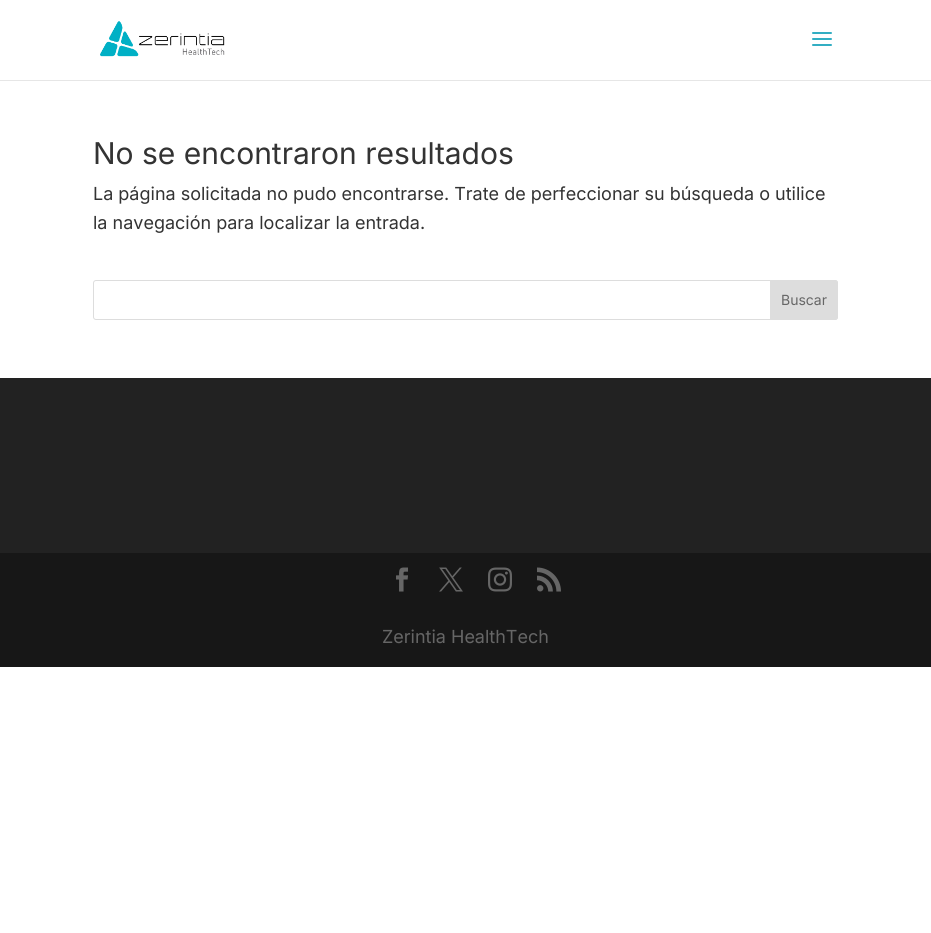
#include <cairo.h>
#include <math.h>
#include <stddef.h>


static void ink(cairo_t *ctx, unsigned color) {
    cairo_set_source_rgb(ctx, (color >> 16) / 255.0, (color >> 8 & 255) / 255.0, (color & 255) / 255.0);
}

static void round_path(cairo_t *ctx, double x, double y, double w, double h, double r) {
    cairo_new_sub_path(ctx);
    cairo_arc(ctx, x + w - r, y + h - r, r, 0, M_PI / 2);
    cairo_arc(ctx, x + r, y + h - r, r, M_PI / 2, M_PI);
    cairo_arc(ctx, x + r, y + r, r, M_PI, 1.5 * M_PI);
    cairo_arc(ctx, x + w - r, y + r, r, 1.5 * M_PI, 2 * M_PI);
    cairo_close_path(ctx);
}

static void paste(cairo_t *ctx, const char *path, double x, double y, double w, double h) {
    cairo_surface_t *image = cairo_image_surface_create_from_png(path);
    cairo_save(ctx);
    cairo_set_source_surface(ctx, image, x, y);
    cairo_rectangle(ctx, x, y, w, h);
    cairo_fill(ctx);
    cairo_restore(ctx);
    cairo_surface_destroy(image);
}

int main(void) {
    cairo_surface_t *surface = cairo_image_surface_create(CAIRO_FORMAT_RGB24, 931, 933);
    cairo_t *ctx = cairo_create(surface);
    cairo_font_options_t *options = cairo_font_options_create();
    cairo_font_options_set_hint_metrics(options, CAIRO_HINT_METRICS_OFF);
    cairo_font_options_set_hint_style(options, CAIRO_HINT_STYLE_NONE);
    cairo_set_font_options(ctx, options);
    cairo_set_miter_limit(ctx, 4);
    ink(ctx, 0xFFFFFF);
    cairo_paint(ctx);
    ink(ctx, 0xE6E6E6);
    cairo_rectangle(ctx, 0, 80, 931, 1);
    cairo_fill(ctx);
    paste(ctx, "media/1.png", 100, 21, 125, 36);
    paste(ctx, "media/2.png", 812, 32, 20, 14);
    cairo_select_font_face(ctx, "Inter", CAIRO_FONT_SLANT_NORMAL, CAIRO_FONT_WEIGHT_NORMAL);
    cairo_set_font_size(ctx, 30);
    ink(ctx, 0x333333);
    cairo_move_to(ctx, 93, 164);
    cairo_show_text(ctx, "No se encontraron resultados");
    cairo_set_font_size(ctx, 18);
    cairo_move_to(ctx, 93, 200);
    cairo_show_text(ctx, "La página solicitada no pudo encontrarse. Trate de perfeccionar su búsqueda o utilice");
    cairo_move_to(ctx, 93, 229);
    cairo_show_text(ctx, "la navegación para localizar la entrada.");
    round_path(ctx, 93.5, 280.5, 744, 39, 2.5);
    ink(ctx, 0xDDDDDD);
    cairo_set_line_width(ctx, 1);
    cairo_stroke(ctx);
    cairo_new_path(ctx);
    cairo_move_to(ctx, 770.5, 280.5);
    cairo_line_to(ctx, 835, 280.5);
    cairo_curve_to(ctx, 836.5, 280.5, 837.5, 281.5, 837.5, 283);
    cairo_line_to(ctx, 837.5, 317);
    cairo_curve_to(ctx, 837.5, 318.5, 836.5, 319.5, 835, 319.5);
    cairo_line_to(ctx, 770.5, 319.5);
    cairo_close_path(ctx);
    cairo_fill_preserve(ctx);
    cairo_stroke(ctx);
    cairo_set_font_size(ctx, 14);
    ink(ctx, 0x666666);
    cairo_move_to(ctx, 781, 305);
    cairo_show_text(ctx, "Buscar");
    ink(ctx, 0x222222);
    cairo_rectangle(ctx, 0, 378, 931, 175);
    cairo_fill(ctx);
    ink(ctx, 0x171717);
    cairo_rectangle(ctx, 0, 553, 931, 114);
    cairo_fill(ctx);
    paste(ctx, "media/3.png", 396, 567, 12, 25);
    paste(ctx, "media/4.png", 439, 567, 24, 25);
    paste(ctx, "media/5.png", 488, 567, 24, 25);
    paste(ctx, "media/6.png", 537, 567, 24, 25);
    cairo_set_font_size(ctx, 18);
    ink(ctx, 0x666666);
    cairo_move_to(ctx, 382, 643);
    cairo_show_text(ctx, "Zerintia HealthTech");
    cairo_surface_write_to_png(surface, "image.png");
    cairo_font_options_destroy(options);
    cairo_destroy(ctx);
    cairo_surface_destroy(surface);
    return 0;
}
